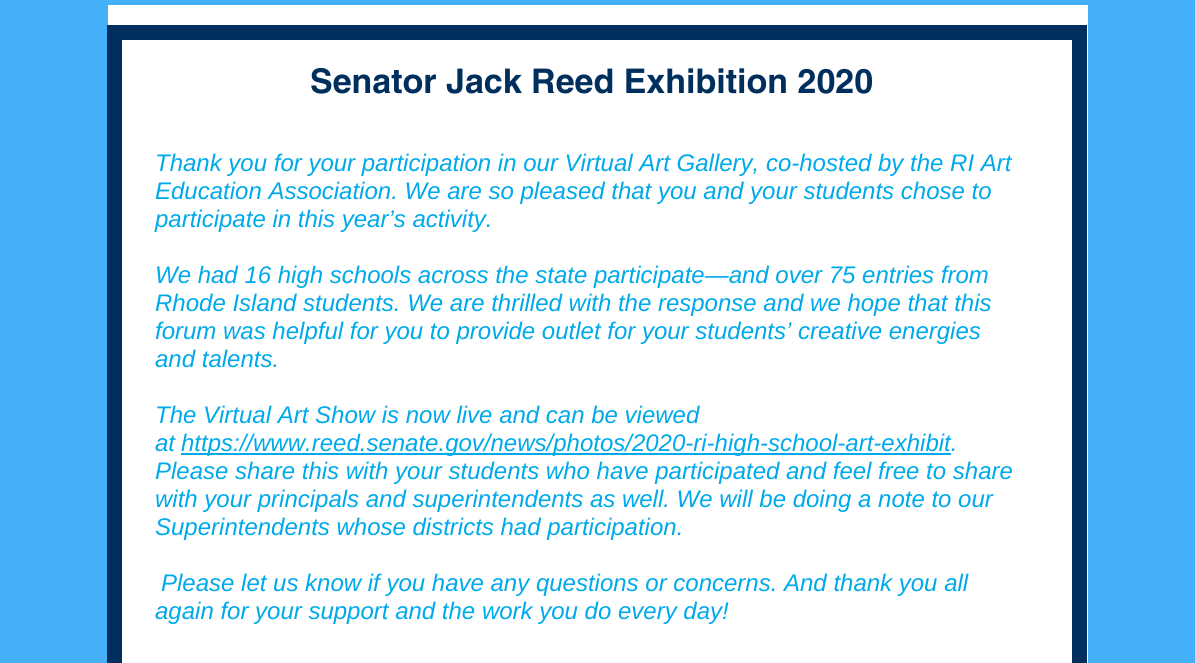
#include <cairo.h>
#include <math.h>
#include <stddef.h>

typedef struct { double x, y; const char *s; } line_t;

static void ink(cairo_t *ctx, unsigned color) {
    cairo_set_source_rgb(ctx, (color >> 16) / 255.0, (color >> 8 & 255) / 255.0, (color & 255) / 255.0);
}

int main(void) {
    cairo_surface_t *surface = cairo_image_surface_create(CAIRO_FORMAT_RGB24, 1195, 663);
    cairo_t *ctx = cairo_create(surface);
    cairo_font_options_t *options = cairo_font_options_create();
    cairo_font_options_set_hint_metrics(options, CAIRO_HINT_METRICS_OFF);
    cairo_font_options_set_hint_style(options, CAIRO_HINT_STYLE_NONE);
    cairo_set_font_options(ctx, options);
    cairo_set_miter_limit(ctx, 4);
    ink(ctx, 0x43B0F9);
    cairo_paint(ctx);
    ink(ctx, 0xFFFFFF);
    cairo_rectangle(ctx, 108, 5, 980, 658);
    cairo_fill(ctx);
    cairo_rectangle(ctx, 114.5, 32.5, 965, 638);
    ink(ctx, 0x002E5D);
    cairo_set_line_width(ctx, 15);
    cairo_stroke(ctx);
    cairo_select_font_face(ctx, "helvetica", CAIRO_FONT_SLANT_NORMAL, CAIRO_FONT_WEIGHT_BOLD);
    cairo_set_font_size(ctx, 34);
    cairo_move_to(ctx, 310, 93);
    cairo_show_text(ctx, "Senator Jack Reed Exhibition 2020");
    cairo_select_font_face(ctx, "Liberation Sans", CAIRO_FONT_SLANT_ITALIC, CAIRO_FONT_WEIGHT_NORMAL);
    cairo_set_font_size(ctx, 24);
    ink(ctx, 0x00A9E9);
    {
        static const line_t items[] = {
            {155, 171, "Thank you for your participation in our Virtual Art Gallery, co-hosted by the RI Art"},
            {155, 199, "Education Association. We are so pleased that you and your students chose to"},
            {155, 227, "participate in this year’s activity."},
            {155, 283, "We had 16 high schools across the state participate—and over 75 entries from"},
            {155, 311, "Rhode Island students. We are thrilled with the response and we hope that this"},
            {155, 339, "forum was helpful for you to provide outlet for your students’ creative energies"},
            {155, 367, "and talents."},
            {155, 423, "The Virtual Art Show is now live and can be viewed"},
            {155, 451, "at"},
        };
        for (size_t i = 0; i < sizeof items / sizeof *items; i++) {
            cairo_move_to(ctx, items[i].x, items[i].y);
            cairo_show_text(ctx, items[i].s);
        }
    }
    cairo_rectangle(ctx, 181, 453, 770, 2);
    cairo_fill(ctx);
    {
        static const line_t items[] = {
            {181, 451, "https://www.reed.senate.gov/news/photos/2020-ri-high-school-art-exhibit."},
            {155, 479, "Please share this with your students who have participated and feel free to share"},
            {155, 507, "with your principals and superintendents as well. We will be doing a note to our"},
            {155, 535, "Superintendents whose districts had participation."},
            {161, 591, "Please let us know if you have any questions or concerns. And thank you all"},
            {155, 619, "again for your support and the work you do every day!"},
        };
        for (size_t i = 0; i < sizeof items / sizeof *items; i++) {
            cairo_move_to(ctx, items[i].x, items[i].y);
            cairo_show_text(ctx, items[i].s);
        }
    }
    cairo_surface_write_to_png(surface, "image.png");
    cairo_font_options_destroy(options);
    cairo_destroy(ctx);
    cairo_surface_destroy(surface);
    return 0;
}
